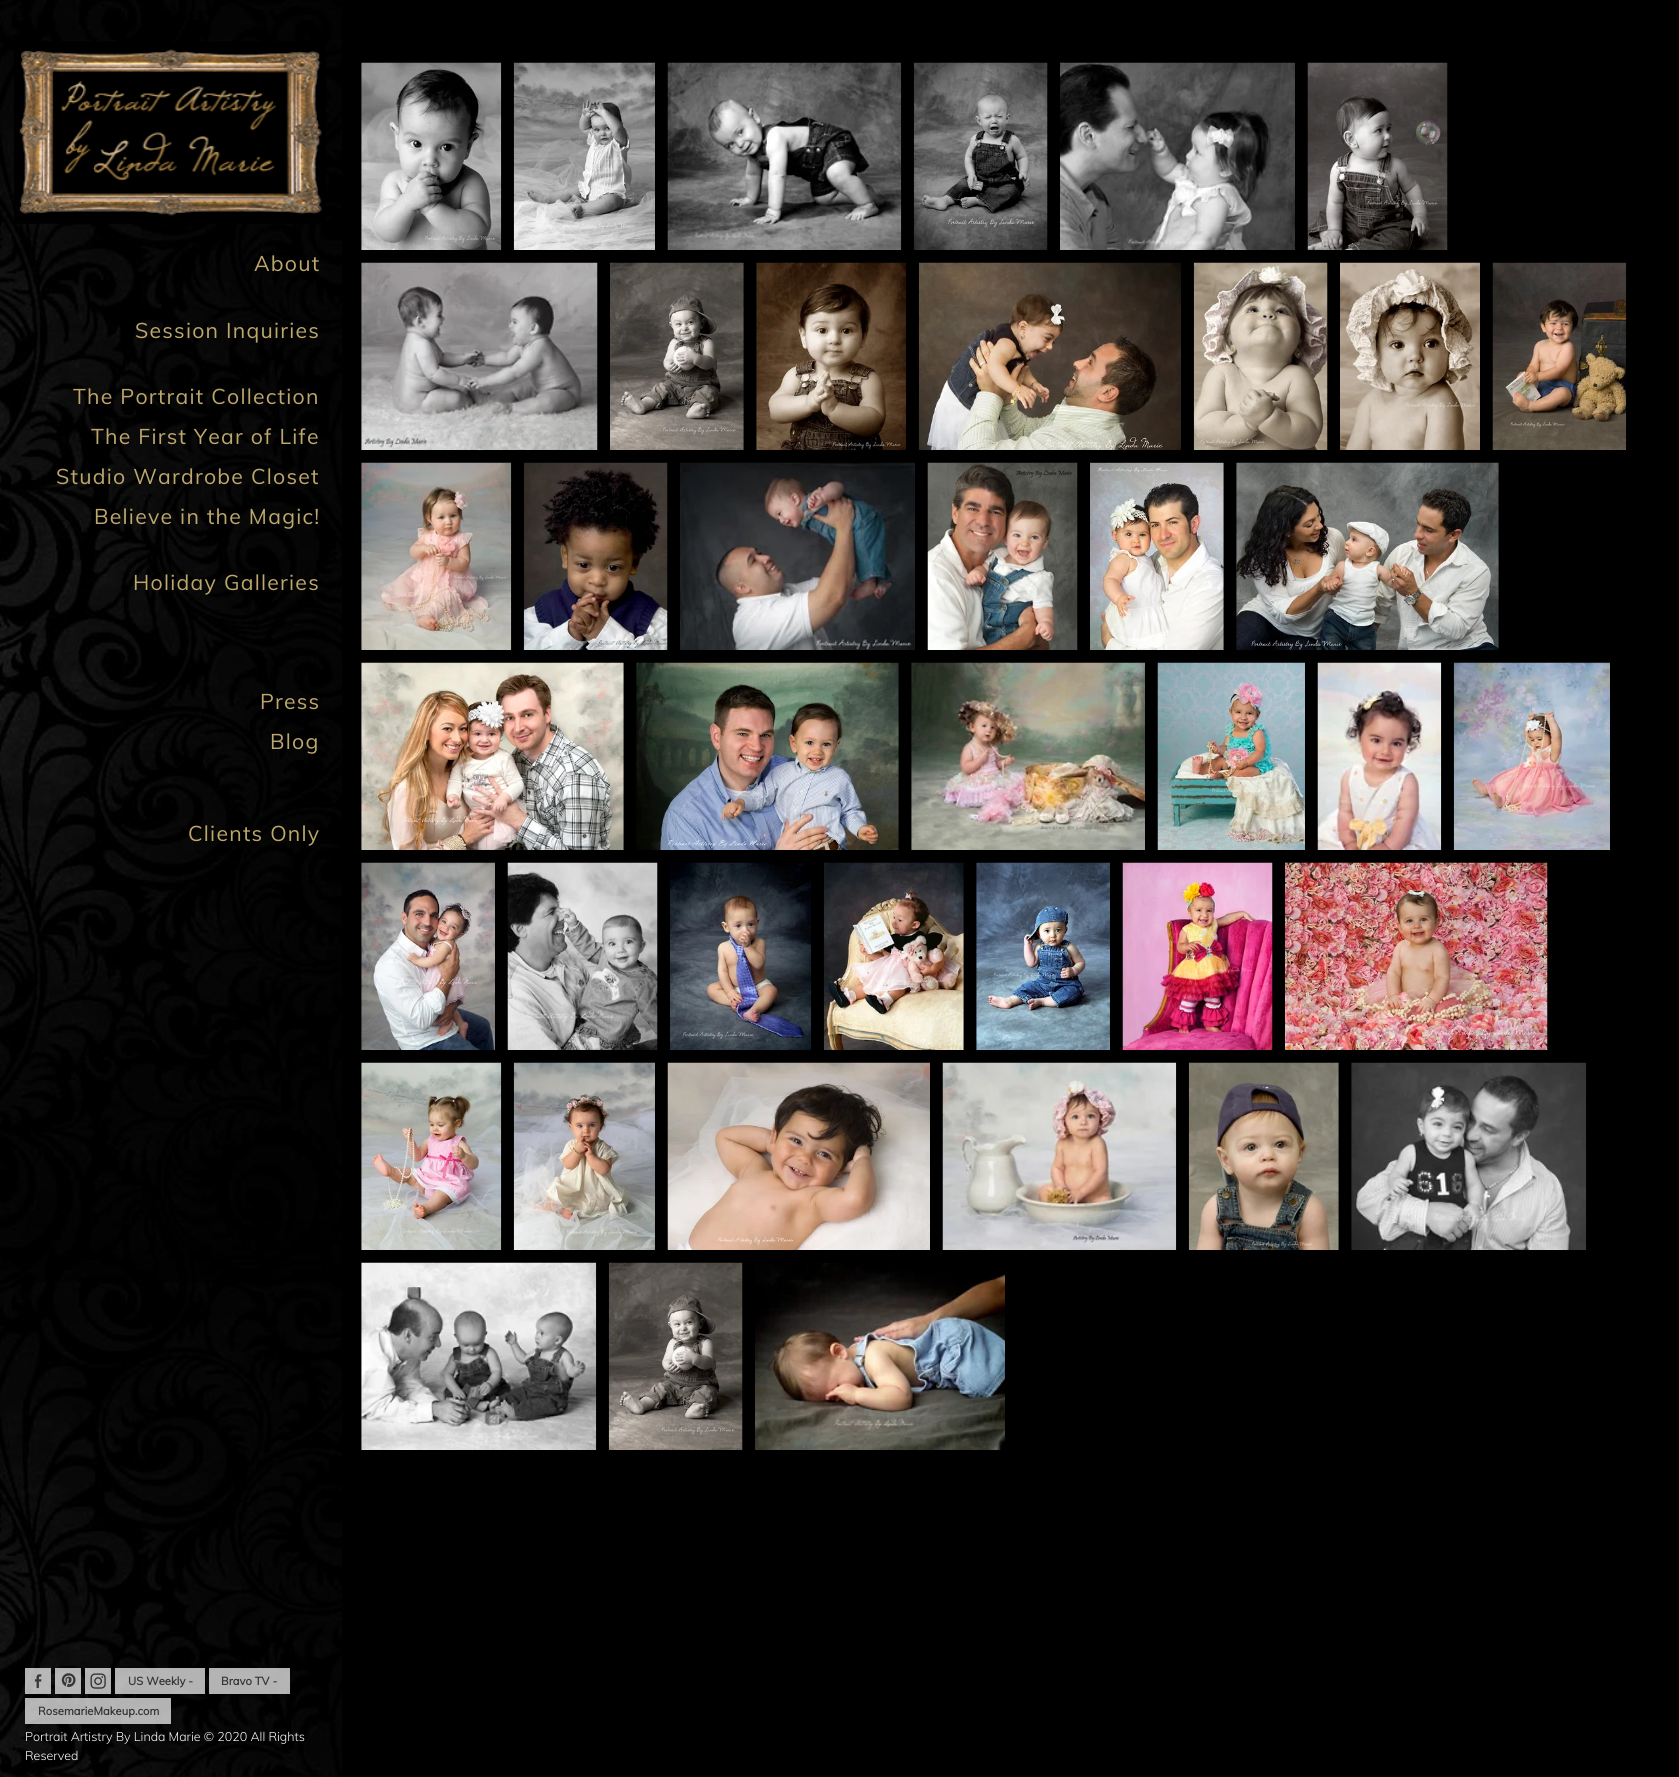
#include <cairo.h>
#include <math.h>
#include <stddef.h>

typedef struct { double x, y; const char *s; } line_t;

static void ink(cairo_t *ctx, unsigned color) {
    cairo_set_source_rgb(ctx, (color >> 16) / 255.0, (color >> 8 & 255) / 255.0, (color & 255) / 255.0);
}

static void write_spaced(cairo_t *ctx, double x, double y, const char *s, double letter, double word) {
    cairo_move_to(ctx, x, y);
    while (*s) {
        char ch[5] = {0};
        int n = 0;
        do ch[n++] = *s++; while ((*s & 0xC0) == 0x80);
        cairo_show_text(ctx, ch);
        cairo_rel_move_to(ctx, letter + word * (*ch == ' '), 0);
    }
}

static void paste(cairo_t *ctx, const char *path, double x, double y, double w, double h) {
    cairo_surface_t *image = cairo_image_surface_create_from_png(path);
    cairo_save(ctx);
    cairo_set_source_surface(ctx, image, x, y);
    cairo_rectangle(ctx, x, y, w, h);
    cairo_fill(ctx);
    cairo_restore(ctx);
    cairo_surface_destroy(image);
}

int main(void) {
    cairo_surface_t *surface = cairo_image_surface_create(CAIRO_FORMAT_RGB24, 1679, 1777);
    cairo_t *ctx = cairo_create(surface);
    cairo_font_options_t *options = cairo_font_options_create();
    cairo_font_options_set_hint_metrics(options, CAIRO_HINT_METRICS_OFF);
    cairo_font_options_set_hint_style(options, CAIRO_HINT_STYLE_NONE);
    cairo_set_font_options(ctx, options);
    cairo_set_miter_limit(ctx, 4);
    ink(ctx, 0x000000);
    cairo_paint(ctx);
    paste(ctx, "media/1.png", 0, 0, 342, 1777);
    paste(ctx, "media/2.png", 14, 41, 312, 183);
    cairo_select_font_face(ctx, "Muli", CAIRO_FONT_SLANT_NORMAL, CAIRO_FONT_WEIGHT_NORMAL);
    cairo_set_font_size(ctx, 21.25);
    ink(ctx, 0xBEA76D);
    {
        static const line_t items[] = {
            {254, 271, "About"},
            {135, 338, "Session Inquiries"},
            {73, 404, "The Portrait Collection"},
            {91, 444, "The First Year of Life"},
            {56, 484, "Studio Wardrobe Closet"},
            {94, 524, "Believe in the Magic!"},
            {133, 590, "Holiday Galleries"},
            {260, 709, "Press"},
            {270, 749, "Blog"},
            {188, 841, "Clients Only"},
        };
        for (size_t i = 0; i < sizeof items / sizeof *items; i++) {
            write_spaced(ctx, items[i].x, items[i].y, items[i].s, 1.25, 0);
        }
    }
    paste(ctx, "media/3.png", 361, 62, 141, 188);
    paste(ctx, "media/4.png", 513, 62, 142, 188);
    paste(ctx, "media/5.png", 667, 62, 235, 188);
    paste(ctx, "media/6.png", 913, 62, 135, 188);
    paste(ctx, "media/7.png", 1060, 62, 235, 188);
    paste(ctx, "media/8.png", 1307, 62, 141, 188);
    paste(ctx, "media/9.png", 361, 262, 237, 188);
    paste(ctx, "media/10.png", 610, 262, 134, 188);
    paste(ctx, "media/11.png", 756, 262, 151, 188);
    paste(ctx, "media/12.png", 918, 262, 263, 188);
    paste(ctx, "media/13.png", 1193, 262, 135, 188);
    paste(ctx, "media/14.png", 1340, 262, 140, 188);
    paste(ctx, "media/15.png", 1492, 262, 135, 188);
    paste(ctx, "media/16.png", 361, 462, 151, 188);
    paste(ctx, "media/17.png", 523, 462, 145, 188);
    paste(ctx, "media/18.png", 680, 462, 235, 188);
    paste(ctx, "media/19.png", 927, 462, 151, 188);
    paste(ctx, "media/20.png", 1090, 462, 134, 188);
    paste(ctx, "media/21.png", 1236, 462, 263, 188);
    paste(ctx, "media/22.png", 361, 662, 263, 188);
    paste(ctx, "media/23.png", 636, 662, 263, 188);
    paste(ctx, "media/24.png", 911, 662, 234, 188);
    paste(ctx, "media/25.png", 1157, 662, 148, 188);
    paste(ctx, "media/26.png", 1317, 662, 125, 188);
    paste(ctx, "media/27.png", 1453, 662, 157, 188);
    paste(ctx, "media/28.png", 361, 862, 134, 188);
    paste(ctx, "media/29.png", 507, 862, 151, 188);
    paste(ctx, "media/30.png", 670, 862, 142, 188);
    paste(ctx, "media/31.png", 823, 862, 141, 188);
    paste(ctx, "media/32.png", 976, 862, 134, 188);
    paste(ctx, "media/33.png", 1122, 862, 151, 188);
    paste(ctx, "media/34.png", 1285, 862, 263, 188);
    paste(ctx, "media/35.png", 361, 1062, 141, 188);
    paste(ctx, "media/36.png", 513, 1062, 142, 188);
    paste(ctx, "media/37.png", 667, 1062, 263, 188);
    paste(ctx, "media/38.png", 942, 1062, 235, 188);
    paste(ctx, "media/39.png", 1188, 1062, 151, 188);
    paste(ctx, "media/40.png", 1351, 1062, 236, 188);
    paste(ctx, "media/41.png", 361, 1262, 236, 188);
    paste(ctx, "media/42.png", 608, 1262, 135, 188);
    paste(ctx, "media/43.png", 755, 1263, 250, 187);
    cairo_set_source_rgba(ctx, 1, 1, 1, 0.7);
    cairo_rectangle(ctx, 25, 1668, 26, 26);
    cairo_fill(ctx);
    paste(ctx, "media/44.png", 34, 1674, 8, 15);
    cairo_rectangle(ctx, 55, 1668, 26, 26);
    cairo_fill(ctx);
    paste(ctx, "media/45.png", 61, 1673, 15, 14);
    cairo_rectangle(ctx, 85, 1668, 26, 26);
    cairo_fill(ctx);
    paste(ctx, "media/46.png", 90, 1673, 16, 16);
    cairo_rectangle(ctx, 115, 1668, 90, 26);
    cairo_fill(ctx);
    cairo_select_font_face(ctx, "Muli", CAIRO_FONT_SLANT_NORMAL, CAIRO_FONT_WEIGHT_BOLD);
    cairo_set_font_size(ctx, 11.25);
    ink(ctx, 0x363636);
    cairo_move_to(ctx, 128, 1685);
    cairo_show_text(ctx, "US Weekly -");
    cairo_set_source_rgba(ctx, 1, 1, 1, 0.7);
    cairo_rectangle(ctx, 209, 1668, 81, 26);
    cairo_fill(ctx);
    ink(ctx, 0x363636);
    cairo_move_to(ctx, 221, 1685);
    cairo_show_text(ctx, "Bravo TV -");
    cairo_set_source_rgba(ctx, 1, 1, 1, 0.7);
    cairo_rectangle(ctx, 25, 1698, 146, 26);
    cairo_fill(ctx);
    ink(ctx, 0x363636);
    cairo_move_to(ctx, 38, 1715);
    cairo_show_text(ctx, "RosemarieMakeup.com");
    cairo_select_font_face(ctx, "Muli Light", CAIRO_FONT_SLANT_NORMAL, CAIRO_FONT_WEIGHT_NORMAL);
    cairo_set_font_size(ctx, 12.5);
    ink(ctx, 0xFFFFFF);
    cairo_move_to(ctx, 25, 1741);
    cairo_show_text(ctx, "Portrait Artistry By Linda Marie © 2020 All Rights");
    cairo_move_to(ctx, 25, 1760);
    cairo_show_text(ctx, "Reserved");
    cairo_surface_write_to_png(surface, "image.png");
    cairo_font_options_destroy(options);
    cairo_destroy(ctx);
    cairo_surface_destroy(surface);
    return 0;
}
